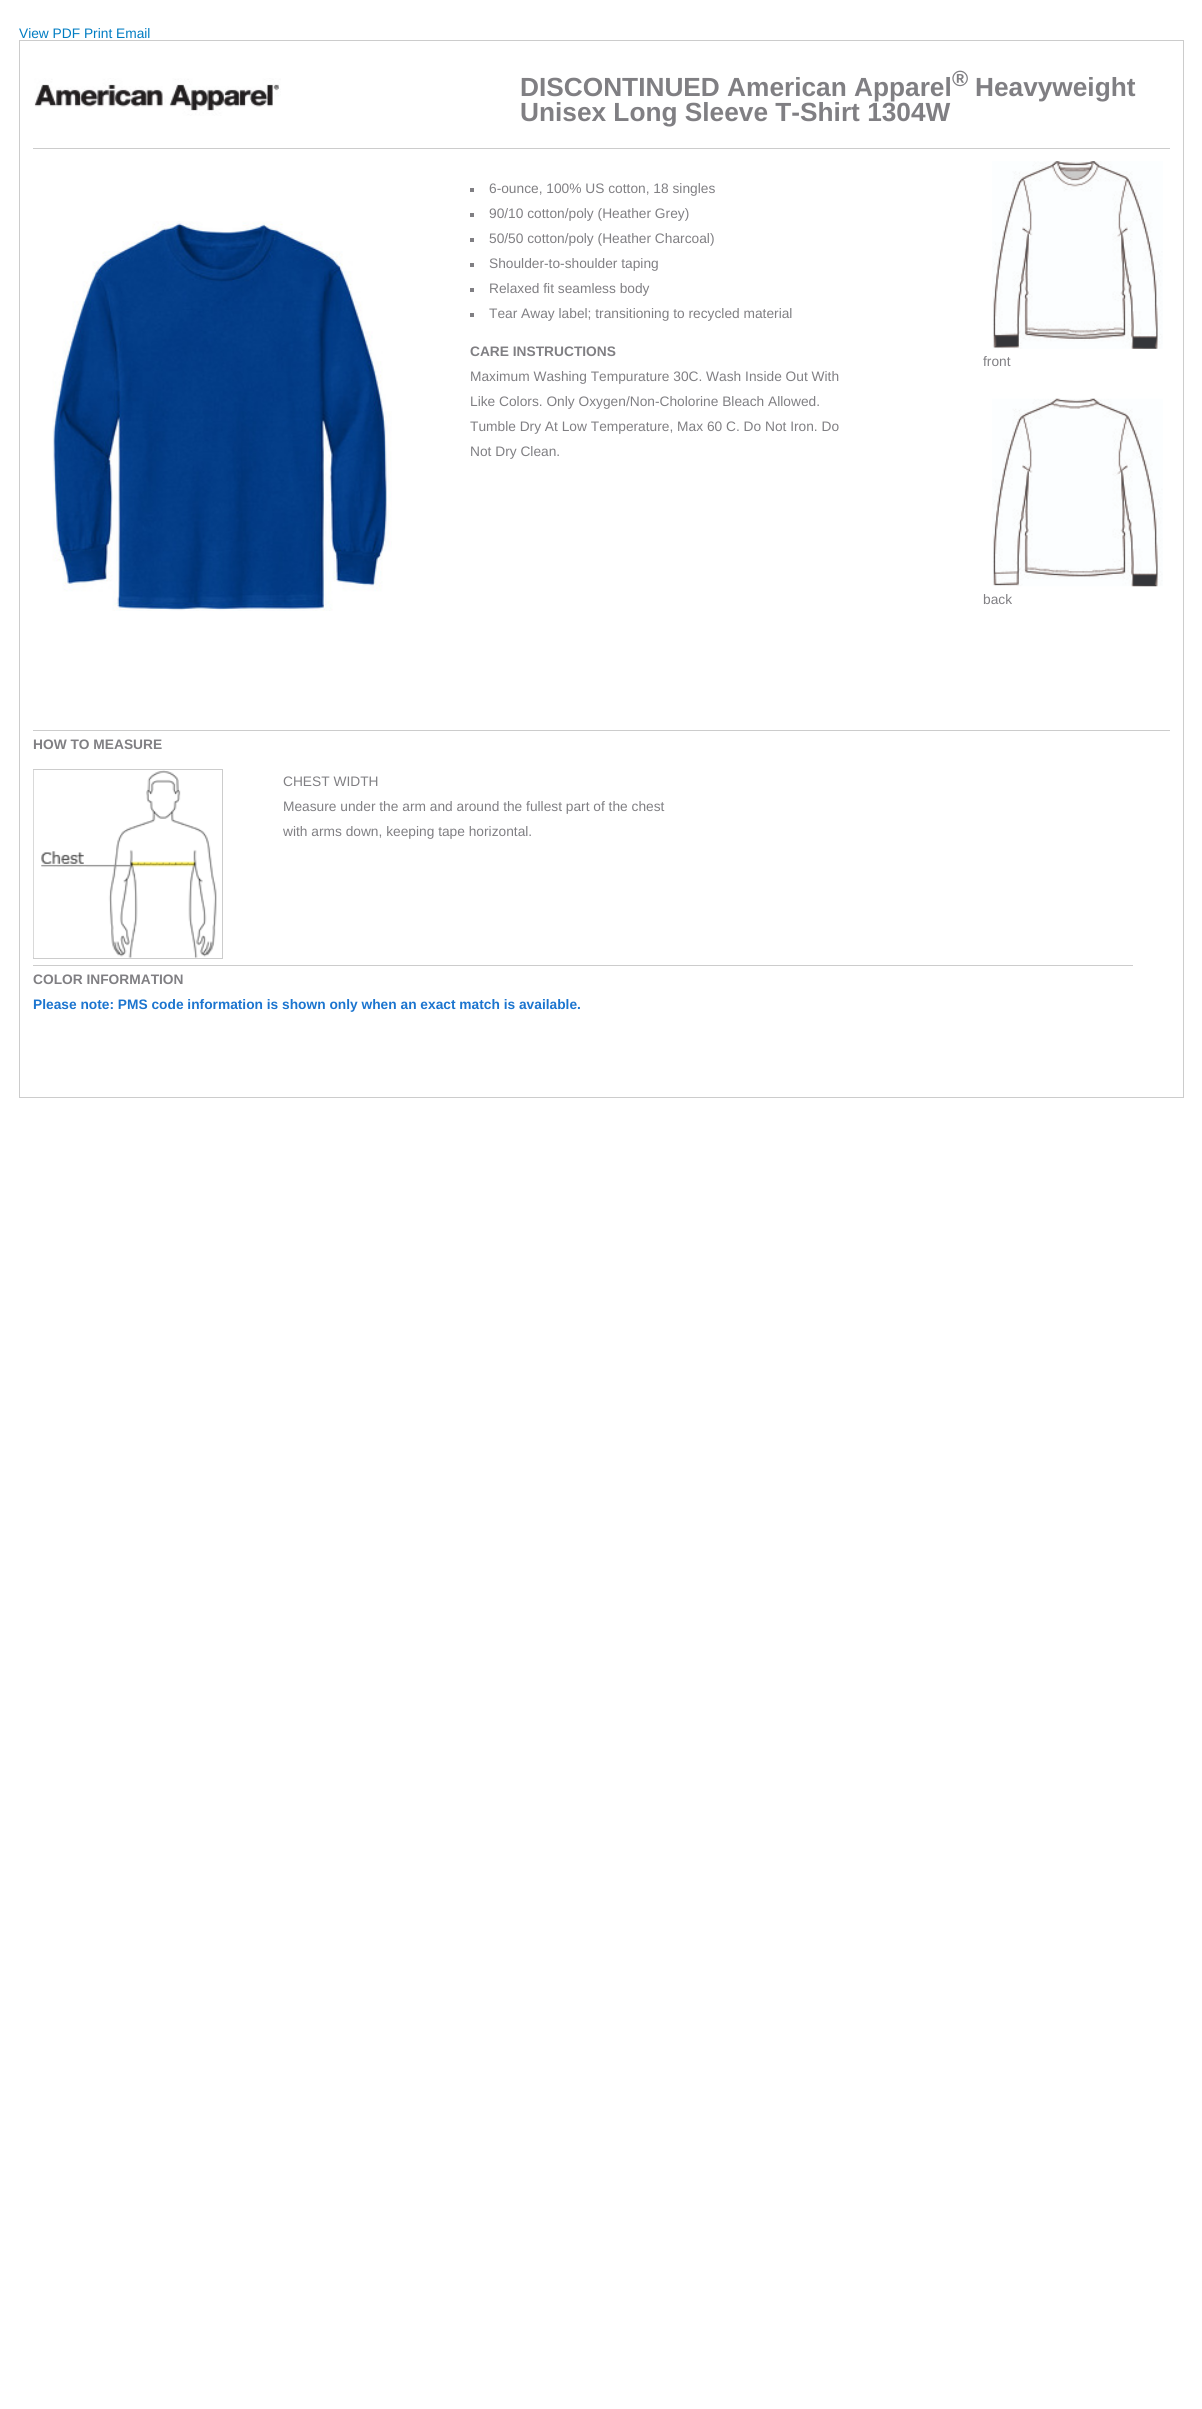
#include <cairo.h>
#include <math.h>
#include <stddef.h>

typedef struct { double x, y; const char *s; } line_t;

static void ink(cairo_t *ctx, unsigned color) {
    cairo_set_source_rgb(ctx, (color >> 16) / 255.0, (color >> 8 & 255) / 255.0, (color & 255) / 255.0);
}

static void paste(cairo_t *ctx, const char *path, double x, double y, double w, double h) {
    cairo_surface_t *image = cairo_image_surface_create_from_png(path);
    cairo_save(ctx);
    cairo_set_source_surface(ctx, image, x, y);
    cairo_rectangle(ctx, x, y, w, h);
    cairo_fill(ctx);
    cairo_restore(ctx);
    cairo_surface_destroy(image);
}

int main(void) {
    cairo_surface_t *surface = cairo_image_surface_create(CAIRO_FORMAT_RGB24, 1202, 2409);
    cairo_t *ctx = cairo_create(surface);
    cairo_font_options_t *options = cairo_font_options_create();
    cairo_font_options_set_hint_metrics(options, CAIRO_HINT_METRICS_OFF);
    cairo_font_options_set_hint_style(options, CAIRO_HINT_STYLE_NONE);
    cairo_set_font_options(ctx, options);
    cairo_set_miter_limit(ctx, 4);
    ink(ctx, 0xFFFFFF);
    cairo_paint(ctx);
    cairo_select_font_face(ctx, "Liberation Sans", CAIRO_FONT_SLANT_NORMAL, CAIRO_FONT_WEIGHT_NORMAL);
    cairo_set_font_size(ctx, 13.75);
    ink(ctx, 0x007CC2);
    cairo_move_to(ctx, 19, 38);
    cairo_show_text(ctx, "View PDF Print Email");
    cairo_rectangle(ctx, 19.5, 40.5, 1164, 1057);
    ink(ctx, 0xCCCCCC);
    cairo_set_line_width(ctx, 1);
    cairo_stroke(ctx);
    cairo_rectangle(ctx, 33, 148, 1137, 1);
    cairo_fill(ctx);
    paste(ctx, "media/1.png", 34, 78, 247, 38);
    cairo_select_font_face(ctx, "Liberation Sans", CAIRO_FONT_SLANT_NORMAL, CAIRO_FONT_WEIGHT_BOLD);
    cairo_set_font_size(ctx, 26.25);
    ink(ctx, 0x807F83);
    cairo_move_to(ctx, 520, 96);
    cairo_show_text(ctx, "DISCONTINUED American Apparel");
    cairo_set_font_size(ctx, 22);
    cairo_move_to(ctx, 952, 86);
    cairo_show_text(ctx, "®");
    cairo_set_font_size(ctx, 26.25);
    cairo_move_to(ctx, 975, 96);
    cairo_show_text(ctx, "Heavyweight");
    cairo_move_to(ctx, 520, 121);
    cairo_show_text(ctx, "Unisex Long Sleeve T-Shirt 1304W");
    ink(ctx, 0xCCCCCC);
    cairo_rectangle(ctx, 33, 730, 1137, 1);
    cairo_fill(ctx);
    paste(ctx, "media/2.png", 52, 221, 340, 390);
    ink(ctx, 0x807F83);
    cairo_rectangle(ctx, 470, 188, 4, 4);
    cairo_fill(ctx);
    cairo_select_font_face(ctx, "Liberation Sans", CAIRO_FONT_SLANT_NORMAL, CAIRO_FONT_WEIGHT_NORMAL);
    cairo_set_font_size(ctx, 13.75);
    cairo_move_to(ctx, 489, 193);
    cairo_show_text(ctx, "6-ounce, 100% US cotton, 18 singles");
    cairo_rectangle(ctx, 470, 213, 4, 4);
    cairo_fill(ctx);
    cairo_move_to(ctx, 489, 218);
    cairo_show_text(ctx, "90/10 cotton/poly (Heather Grey)");
    cairo_rectangle(ctx, 470, 238, 4, 4);
    cairo_fill(ctx);
    cairo_move_to(ctx, 489, 243);
    cairo_show_text(ctx, "50/50 cotton/poly (Heather Charcoal)");
    cairo_rectangle(ctx, 470, 263, 4, 4);
    cairo_fill(ctx);
    cairo_move_to(ctx, 489, 268);
    cairo_show_text(ctx, "Shoulder-to-shoulder taping");
    cairo_rectangle(ctx, 470, 288, 4, 4);
    cairo_fill(ctx);
    cairo_move_to(ctx, 489, 293);
    cairo_show_text(ctx, "Relaxed fit seamless body");
    cairo_rectangle(ctx, 470, 313, 4, 4);
    cairo_fill(ctx);
    cairo_move_to(ctx, 489, 318);
    cairo_show_text(ctx, "Tear Away label; transitioning to recycled material");
    cairo_select_font_face(ctx, "Liberation Sans", CAIRO_FONT_SLANT_NORMAL, CAIRO_FONT_WEIGHT_BOLD);
    cairo_move_to(ctx, 470, 356);
    cairo_show_text(ctx, "CARE INSTRUCTIONS");
    cairo_select_font_face(ctx, "Liberation Sans", CAIRO_FONT_SLANT_NORMAL, CAIRO_FONT_WEIGHT_NORMAL);
    {
        static const line_t items[] = {
            {470, 381, "Maximum Washing Tempurature 30C. Wash Inside Out With"},
            {470, 406, "Like Colors. Only Oxygen/Non-Cholorine Bleach Allowed."},
            {470, 431, "Tumble Dry At Low Temperature, Max 60 C. Do Not Iron. Do"},
            {470, 456, "Not Dry Clean."},
        };
        for (size_t i = 0; i < sizeof items / sizeof *items; i++) {
            cairo_move_to(ctx, items[i].x, items[i].y);
            cairo_show_text(ctx, items[i].s);
        }
    }
    paste(ctx, "media/3.png", 992, 161, 171, 188);
    cairo_move_to(ctx, 983, 366);
    cairo_show_text(ctx, "front");
    paste(ctx, "media/4.png", 992, 398, 171, 189);
    cairo_move_to(ctx, 983, 604);
    cairo_show_text(ctx, "back");
    ink(ctx, 0xCCCCCC);
    cairo_rectangle(ctx, 33, 965, 1100, 1);
    cairo_fill(ctx);
    cairo_select_font_face(ctx, "Liberation Sans", CAIRO_FONT_SLANT_NORMAL, CAIRO_FONT_WEIGHT_BOLD);
    ink(ctx, 0x807F83);
    cairo_move_to(ctx, 33, 749);
    cairo_show_text(ctx, "HOW TO MEASURE");
    cairo_rectangle(ctx, 33.5, 769.5, 189, 189);
    ink(ctx, 0xCCCCCC);
    cairo_stroke(ctx);
    paste(ctx, "media/5.png", 33, 770, 184, 188);
    cairo_select_font_face(ctx, "Liberation Sans", CAIRO_FONT_SLANT_NORMAL, CAIRO_FONT_WEIGHT_NORMAL);
    ink(ctx, 0x807F83);
    {
        static const line_t items[] = {
            {283, 786, "CHEST WIDTH"},
            {283, 811, "Measure under the arm and around the fullest part of the chest"},
            {283, 836, "with arms down, keeping tape horizontal."},
        };
        for (size_t i = 0; i < sizeof items / sizeof *items; i++) {
            cairo_move_to(ctx, items[i].x, items[i].y);
            cairo_show_text(ctx, items[i].s);
        }
    }
    cairo_select_font_face(ctx, "Liberation Sans", CAIRO_FONT_SLANT_NORMAL, CAIRO_FONT_WEIGHT_BOLD);
    cairo_move_to(ctx, 33, 984);
    cairo_show_text(ctx, "COLOR INFORMATION");
    ink(ctx, 0x1C75CF);
    cairo_move_to(ctx, 33, 1009);
    cairo_show_text(ctx, "Please note: PMS code information is shown only when an exact match is available.");
    cairo_surface_write_to_png(surface, "image.png");
    cairo_font_options_destroy(options);
    cairo_destroy(ctx);
    cairo_surface_destroy(surface);
    return 0;
}
